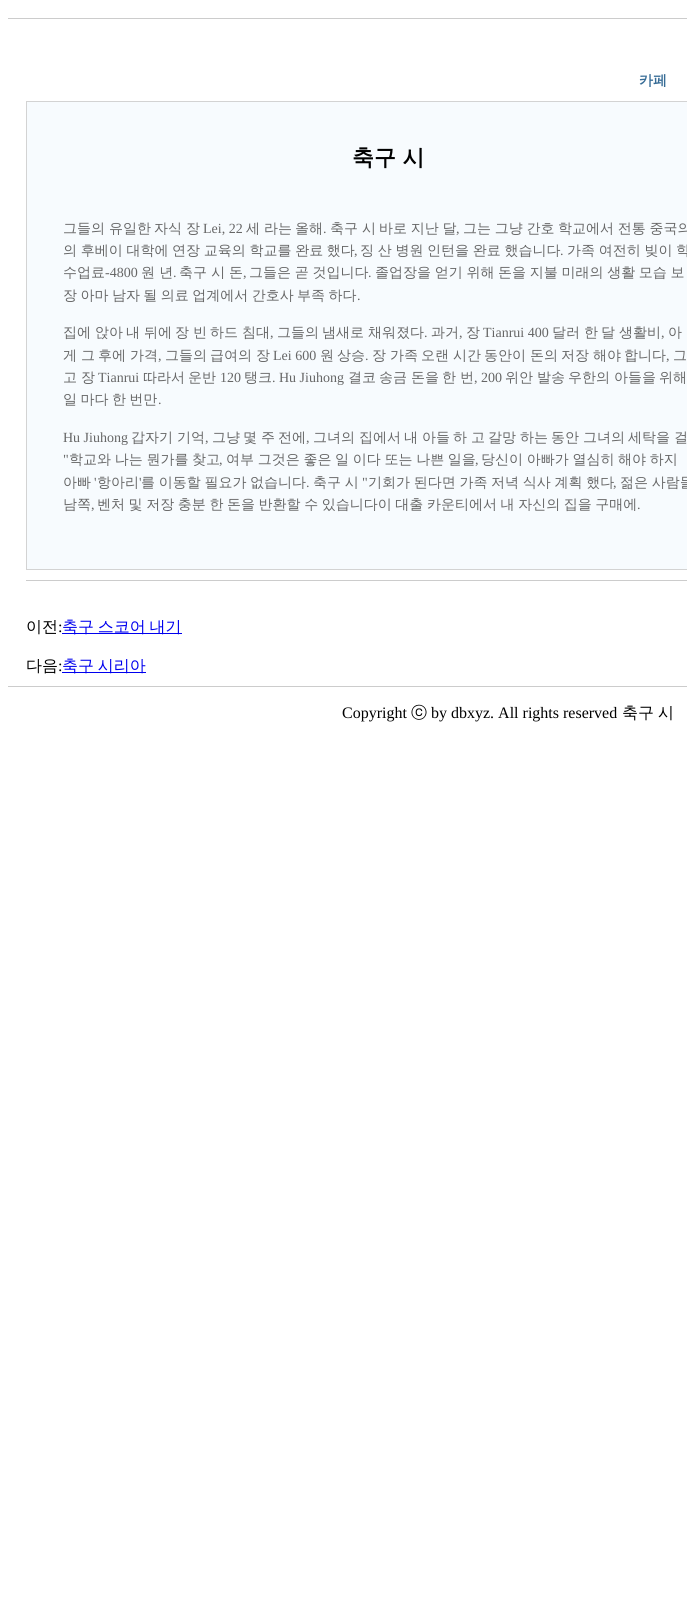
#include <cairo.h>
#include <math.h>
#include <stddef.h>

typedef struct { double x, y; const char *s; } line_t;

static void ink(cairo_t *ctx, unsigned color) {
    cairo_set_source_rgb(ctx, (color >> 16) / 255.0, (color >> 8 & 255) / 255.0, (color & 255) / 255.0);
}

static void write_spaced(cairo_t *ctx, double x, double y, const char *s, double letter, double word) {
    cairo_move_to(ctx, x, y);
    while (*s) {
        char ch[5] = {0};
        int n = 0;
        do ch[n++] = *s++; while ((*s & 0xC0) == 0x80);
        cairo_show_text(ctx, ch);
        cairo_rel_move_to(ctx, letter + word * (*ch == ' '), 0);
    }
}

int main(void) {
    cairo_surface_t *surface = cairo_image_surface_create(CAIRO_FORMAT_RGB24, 695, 1602);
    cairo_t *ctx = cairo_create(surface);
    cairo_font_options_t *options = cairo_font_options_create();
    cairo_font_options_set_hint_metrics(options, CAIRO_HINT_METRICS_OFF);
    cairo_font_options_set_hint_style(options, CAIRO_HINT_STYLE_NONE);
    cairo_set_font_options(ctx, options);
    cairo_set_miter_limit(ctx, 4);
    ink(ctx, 0xFFFFFF);
    cairo_paint(ctx);
    ink(ctx, 0xCCCCCC);
    cairo_rectangle(ctx, 8, 18, 679, 1);
    cairo_fill(ctx);
    cairo_select_font_face(ctx, "WenQuanYi Zen Hei", CAIRO_FONT_SLANT_NORMAL, CAIRO_FONT_WEIGHT_BOLD);
    cairo_set_font_size(ctx, 14);
    ink(ctx, 0x376C96);
    cairo_move_to(ctx, 639, 85);
    cairo_show_text(ctx, "카페");
    ink(ctx, 0xF7FBFE);
    cairo_rectangle(ctx, 27, 102, 660, 467);
    cairo_fill(ctx);
    cairo_save(ctx);
    cairo_rectangle(ctx, 26, 101, 661, 469);
    cairo_clip(ctx);
    cairo_rectangle(ctx, 26.5, 101.5, 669, 468);
    ink(ctx, 0xD3D3D3);
    cairo_set_line_width(ctx, 1);
    cairo_stroke(ctx);
    cairo_restore(ctx);
    cairo_set_font_size(ctx, 22);
    ink(ctx, 0x000000);
    cairo_move_to(ctx, 352, 165);
    cairo_show_text(ctx, "축구 시");
    cairo_select_font_face(ctx, "WenQuanYi Zen Hei Medium", CAIRO_FONT_SLANT_NORMAL, CAIRO_FONT_WEIGHT_NORMAL);
    cairo_set_font_size(ctx, 14);
    ink(ctx, 0x666666);
    {
        static const line_t items[] = {
            {63, 233, "그들의"},
            {109, 233, "유일한"},
            {154, 233, "자식"},
            {186, 233, "장"},
        };
        for (size_t i = 0; i < sizeof items / sizeof *items; i++) {
            cairo_move_to(ctx, items[i].x, items[i].y);
            cairo_show_text(ctx, items[i].s);
        }
    }
    cairo_select_font_face(ctx, "Liberation Serif", CAIRO_FONT_SLANT_NORMAL, CAIRO_FONT_WEIGHT_NORMAL);
    cairo_move_to(ctx, 203, 233);
    cairo_show_text(ctx, "Lei, 22");
    cairo_select_font_face(ctx, "WenQuanYi Zen Hei Medium", CAIRO_FONT_SLANT_NORMAL, CAIRO_FONT_WEIGHT_NORMAL);
    {
        static const line_t items[] = {
            {246, 233, "세"},
            {264, 233, "라는"},
            {295, 233, "올해"},
        };
        for (size_t i = 0; i < sizeof items / sizeof *items; i++) {
            cairo_move_to(ctx, items[i].x, items[i].y);
            cairo_show_text(ctx, items[i].s);
        }
    }
    cairo_select_font_face(ctx, "Liberation Serif", CAIRO_FONT_SLANT_NORMAL, CAIRO_FONT_WEIGHT_NORMAL);
    cairo_move_to(ctx, 323, 233);
    cairo_show_text(ctx, ".");
    cairo_select_font_face(ctx, "WenQuanYi Zen Hei Medium", CAIRO_FONT_SLANT_NORMAL, CAIRO_FONT_WEIGHT_NORMAL);
    cairo_move_to(ctx, 330, 233);
    cairo_show_text(ctx, "축구");
    cairo_move_to(ctx, 362, 233);
    cairo_show_text(ctx, "시");
    write_spaced(ctx, 379, 233, "바로 지난 달", 0, -0.5);
    cairo_select_font_face(ctx, "Liberation Serif", CAIRO_FONT_SLANT_NORMAL, CAIRO_FONT_WEIGHT_NORMAL);
    cairo_move_to(ctx, 456, 233);
    cairo_show_text(ctx, ",");
    cairo_save(ctx);
    cairo_rectangle(ctx, 27, 102, 660, 467);
    cairo_clip(ctx);
    cairo_select_font_face(ctx, "WenQuanYi Zen Hei Medium", CAIRO_FONT_SLANT_NORMAL, CAIRO_FONT_WEIGHT_NORMAL);
    write_spaced(ctx, 463, 233, "그는 그냥 간호 학교에서 전통 중국의", 0, -0.5);
    cairo_restore(ctx);
    cairo_select_font_face(ctx, "WenQuanYi Zen Hei Medium", CAIRO_FONT_SLANT_NORMAL, CAIRO_FONT_WEIGHT_NORMAL);
    write_spaced(ctx, 63, 255, "의 후베이 대학에 연장 교육의 학교를 완료 했다", 0, -0.5);
    cairo_select_font_face(ctx, "Liberation Serif", CAIRO_FONT_SLANT_NORMAL, CAIRO_FONT_WEIGHT_NORMAL);
    cairo_move_to(ctx, 354, 255);
    cairo_show_text(ctx, ",");
    cairo_select_font_face(ctx, "WenQuanYi Zen Hei Medium", CAIRO_FONT_SLANT_NORMAL, CAIRO_FONT_WEIGHT_NORMAL);
    write_spaced(ctx, 360, 255, "징 산 병원 인턴을 완료 했습니다", 0, -0.5);
    cairo_select_font_face(ctx, "Liberation Serif", CAIRO_FONT_SLANT_NORMAL, CAIRO_FONT_WEIGHT_NORMAL);
    cairo_move_to(ctx, 560, 255);
    cairo_show_text(ctx, ".");
    cairo_save(ctx);
    cairo_rectangle(ctx, 27, 102, 660, 467);
    cairo_clip(ctx);
    cairo_select_font_face(ctx, "WenQuanYi Zen Hei Medium", CAIRO_FONT_SLANT_NORMAL, CAIRO_FONT_WEIGHT_NORMAL);
    write_spaced(ctx, 567, 255, "가족 여전히 빚이 학", 0, -0.5);
    cairo_restore(ctx);
    cairo_select_font_face(ctx, "WenQuanYi Zen Hei Medium", CAIRO_FONT_SLANT_NORMAL, CAIRO_FONT_WEIGHT_NORMAL);
    cairo_move_to(ctx, 63, 277);
    cairo_show_text(ctx, "수업료");
    cairo_select_font_face(ctx, "Liberation Serif", CAIRO_FONT_SLANT_NORMAL, CAIRO_FONT_WEIGHT_NORMAL);
    cairo_move_to(ctx, 105, 277);
    cairo_show_text(ctx, "-4800");
    cairo_select_font_face(ctx, "WenQuanYi Zen Hei Medium", CAIRO_FONT_SLANT_NORMAL, CAIRO_FONT_WEIGHT_NORMAL);
    cairo_move_to(ctx, 141, 277);
    cairo_show_text(ctx, "원 년");
    cairo_select_font_face(ctx, "Liberation Serif", CAIRO_FONT_SLANT_NORMAL, CAIRO_FONT_WEIGHT_NORMAL);
    cairo_move_to(ctx, 173, 277);
    cairo_show_text(ctx, ".");
    cairo_select_font_face(ctx, "WenQuanYi Zen Hei Medium", CAIRO_FONT_SLANT_NORMAL, CAIRO_FONT_WEIGHT_NORMAL);
    cairo_move_to(ctx, 179, 277);
    cairo_show_text(ctx, "축구 시");
    cairo_move_to(ctx, 229, 277);
    cairo_show_text(ctx, "돈");
    cairo_select_font_face(ctx, "Liberation Serif", CAIRO_FONT_SLANT_NORMAL, CAIRO_FONT_WEIGHT_NORMAL);
    cairo_move_to(ctx, 243, 277);
    cairo_show_text(ctx, ",");
    cairo_select_font_face(ctx, "WenQuanYi Zen Hei Medium", CAIRO_FONT_SLANT_NORMAL, CAIRO_FONT_WEIGHT_NORMAL);
    write_spaced(ctx, 249, 277, "그들은 곧 것입니다", 0, -0.5);
    cairo_select_font_face(ctx, "Liberation Serif", CAIRO_FONT_SLANT_NORMAL, CAIRO_FONT_WEIGHT_NORMAL);
    cairo_move_to(ctx, 368, 277);
    cairo_show_text(ctx, ".");
    cairo_select_font_face(ctx, "WenQuanYi Zen Hei Medium", CAIRO_FONT_SLANT_NORMAL, CAIRO_FONT_WEIGHT_NORMAL);
    write_spaced(ctx, 375, 277, "졸업장을 얻기 위해 돈을 지불 미래의 생활 모습 보", 0, -0.5);
    write_spaced(ctx, 63, 300, "장 아마 남자 될 의료 업계에서 간호사 부족 하다", 0, -0.75);
    cairo_select_font_face(ctx, "Liberation Serif", CAIRO_FONT_SLANT_NORMAL, CAIRO_FONT_WEIGHT_NORMAL);
    cairo_move_to(ctx, 357, 300);
    cairo_show_text(ctx, ".");
    cairo_select_font_face(ctx, "WenQuanYi Zen Hei Medium", CAIRO_FONT_SLANT_NORMAL, CAIRO_FONT_WEIGHT_NORMAL);
    {
        static const line_t items[] = {
            {63, 337, "집에"},
            {95, 337, "앉아"},
            {126, 337, "내"},
            {144, 337, "뒤에"},
            {175, 337, "장"},
            {193, 337, "빈"},
            {210, 337, "하드"},
            {242, 337, "침대"},
        };
        for (size_t i = 0; i < sizeof items / sizeof *items; i++) {
            cairo_move_to(ctx, items[i].x, items[i].y);
            cairo_show_text(ctx, items[i].s);
        }
    }
    cairo_select_font_face(ctx, "Liberation Serif", CAIRO_FONT_SLANT_NORMAL, CAIRO_FONT_WEIGHT_NORMAL);
    cairo_move_to(ctx, 270, 337);
    cairo_show_text(ctx, ",");
    cairo_select_font_face(ctx, "WenQuanYi Zen Hei Medium", CAIRO_FONT_SLANT_NORMAL, CAIRO_FONT_WEIGHT_NORMAL);
    {
        static const line_t items[] = {
            {277, 337, "그들의"},
            {322, 337, "냄새로"},
            {368, 337, "채워졌다"},
        };
        for (size_t i = 0; i < sizeof items / sizeof *items; i++) {
            cairo_move_to(ctx, items[i].x, items[i].y);
            cairo_show_text(ctx, items[i].s);
        }
    }
    cairo_select_font_face(ctx, "Liberation Serif", CAIRO_FONT_SLANT_NORMAL, CAIRO_FONT_WEIGHT_NORMAL);
    cairo_move_to(ctx, 424, 337);
    cairo_show_text(ctx, ".");
    cairo_select_font_face(ctx, "WenQuanYi Zen Hei Medium", CAIRO_FONT_SLANT_NORMAL, CAIRO_FONT_WEIGHT_NORMAL);
    cairo_move_to(ctx, 431, 337);
    cairo_show_text(ctx, "과거");
    cairo_select_font_face(ctx, "Liberation Serif", CAIRO_FONT_SLANT_NORMAL, CAIRO_FONT_WEIGHT_NORMAL);
    cairo_move_to(ctx, 459, 337);
    cairo_show_text(ctx, ",");
    cairo_select_font_face(ctx, "WenQuanYi Zen Hei Medium", CAIRO_FONT_SLANT_NORMAL, CAIRO_FONT_WEIGHT_NORMAL);
    cairo_move_to(ctx, 466, 337);
    cairo_show_text(ctx, "장");
    cairo_select_font_face(ctx, "Liberation Serif", CAIRO_FONT_SLANT_NORMAL, CAIRO_FONT_WEIGHT_NORMAL);
    cairo_move_to(ctx, 483, 337);
    cairo_show_text(ctx, "Tianrui 400");
    cairo_select_font_face(ctx, "WenQuanYi Zen Hei Medium", CAIRO_FONT_SLANT_NORMAL, CAIRO_FONT_WEIGHT_NORMAL);
    {
        static const line_t items[] = {
            {552, 337, "달러"},
            {584, 337, "한"},
            {601, 337, "달"},
            {619, 337, "생활비"},
        };
        for (size_t i = 0; i < sizeof items / sizeof *items; i++) {
            cairo_move_to(ctx, items[i].x, items[i].y);
            cairo_show_text(ctx, items[i].s);
        }
    }
    cairo_select_font_face(ctx, "Liberation Serif", CAIRO_FONT_SLANT_NORMAL, CAIRO_FONT_WEIGHT_NORMAL);
    cairo_move_to(ctx, 661, 337);
    cairo_show_text(ctx, ",");
    cairo_select_font_face(ctx, "WenQuanYi Zen Hei Medium", CAIRO_FONT_SLANT_NORMAL, CAIRO_FONT_WEIGHT_NORMAL);
    {
        static const line_t items[] = {
            {668, 337, "아"},
            {63, 360, "게"},
            {81, 360, "그"},
            {98, 360, "후에"},
            {130, 360, "가격"},
        };
        for (size_t i = 0; i < sizeof items / sizeof *items; i++) {
            cairo_move_to(ctx, items[i].x, items[i].y);
            cairo_show_text(ctx, items[i].s);
        }
    }
    cairo_select_font_face(ctx, "Liberation Serif", CAIRO_FONT_SLANT_NORMAL, CAIRO_FONT_WEIGHT_NORMAL);
    cairo_move_to(ctx, 158, 360);
    cairo_show_text(ctx, ",");
    cairo_select_font_face(ctx, "WenQuanYi Zen Hei Medium", CAIRO_FONT_SLANT_NORMAL, CAIRO_FONT_WEIGHT_NORMAL);
    {
        static const line_t items[] = {
            {165, 360, "그들의"},
            {210, 360, "급여의"},
            {256, 360, "장"},
        };
        for (size_t i = 0; i < sizeof items / sizeof *items; i++) {
            cairo_move_to(ctx, items[i].x, items[i].y);
            cairo_show_text(ctx, items[i].s);
        }
    }
    cairo_select_font_face(ctx, "Liberation Serif", CAIRO_FONT_SLANT_NORMAL, CAIRO_FONT_WEIGHT_NORMAL);
    cairo_move_to(ctx, 273, 360);
    cairo_show_text(ctx, "Lei 600");
    cairo_select_font_face(ctx, "WenQuanYi Zen Hei Medium", CAIRO_FONT_SLANT_NORMAL, CAIRO_FONT_WEIGHT_NORMAL);
    cairo_move_to(ctx, 320, 360);
    cairo_show_text(ctx, "원");
    cairo_move_to(ctx, 337, 360);
    cairo_show_text(ctx, "상승");
    cairo_select_font_face(ctx, "Liberation Serif", CAIRO_FONT_SLANT_NORMAL, CAIRO_FONT_WEIGHT_NORMAL);
    cairo_move_to(ctx, 365, 360);
    cairo_show_text(ctx, ".");
    cairo_select_font_face(ctx, "WenQuanYi Zen Hei Medium", CAIRO_FONT_SLANT_NORMAL, CAIRO_FONT_WEIGHT_NORMAL);
    {
        static const line_t items[] = {
            {372, 360, "장"},
            {390, 360, "가족"},
            {421, 360, "오랜"},
            {453, 360, "시간"},
            {484, 360, "동안이"},
            {530, 360, "돈의"},
            {561, 360, "저장"},
            {593, 360, "해야"},
            {624, 360, "합니다"},
        };
        for (size_t i = 0; i < sizeof items / sizeof *items; i++) {
            cairo_move_to(ctx, items[i].x, items[i].y);
            cairo_show_text(ctx, items[i].s);
        }
    }
    cairo_select_font_face(ctx, "Liberation Serif", CAIRO_FONT_SLANT_NORMAL, CAIRO_FONT_WEIGHT_NORMAL);
    cairo_move_to(ctx, 666, 360);
    cairo_show_text(ctx, ",");
    cairo_select_font_face(ctx, "WenQuanYi Zen Hei Medium", CAIRO_FONT_SLANT_NORMAL, CAIRO_FONT_WEIGHT_NORMAL);
    {
        static const line_t items[] = {
            {673, 360, "그"},
            {63, 382, "고"},
            {81, 382, "장"},
        };
        for (size_t i = 0; i < sizeof items / sizeof *items; i++) {
            cairo_move_to(ctx, items[i].x, items[i].y);
            cairo_show_text(ctx, items[i].s);
        }
    }
    cairo_select_font_face(ctx, "Liberation Serif", CAIRO_FONT_SLANT_NORMAL, CAIRO_FONT_WEIGHT_NORMAL);
    cairo_move_to(ctx, 98, 382);
    cairo_show_text(ctx, "Tianrui");
    cairo_select_font_face(ctx, "WenQuanYi Zen Hei Medium", CAIRO_FONT_SLANT_NORMAL, CAIRO_FONT_WEIGHT_NORMAL);
    cairo_move_to(ctx, 143, 382);
    cairo_show_text(ctx, "따라서");
    cairo_move_to(ctx, 188, 382);
    cairo_show_text(ctx, "운반");
    cairo_select_font_face(ctx, "Liberation Serif", CAIRO_FONT_SLANT_NORMAL, CAIRO_FONT_WEIGHT_NORMAL);
    cairo_move_to(ctx, 220, 382);
    cairo_show_text(ctx, "120");
    cairo_select_font_face(ctx, "WenQuanYi Zen Hei Medium", CAIRO_FONT_SLANT_NORMAL, CAIRO_FONT_WEIGHT_NORMAL);
    cairo_move_to(ctx, 244, 382);
    cairo_show_text(ctx, "탱크");
    cairo_select_font_face(ctx, "Liberation Serif", CAIRO_FONT_SLANT_NORMAL, CAIRO_FONT_WEIGHT_NORMAL);
    cairo_move_to(ctx, 272, 382);
    cairo_show_text(ctx, ". Hu Jiuhong");
    cairo_select_font_face(ctx, "WenQuanYi Zen Hei Medium", CAIRO_FONT_SLANT_NORMAL, CAIRO_FONT_WEIGHT_NORMAL);
    {
        static const line_t items[] = {
            {348, 382, "결코"},
            {379, 382, "송금"},
            {411, 382, "돈을"},
            {442, 382, "한"},
            {460, 382, "번"},
        };
        for (size_t i = 0; i < sizeof items / sizeof *items; i++) {
            cairo_move_to(ctx, items[i].x, items[i].y);
            cairo_show_text(ctx, items[i].s);
        }
    }
    cairo_select_font_face(ctx, "Liberation Serif", CAIRO_FONT_SLANT_NORMAL, CAIRO_FONT_WEIGHT_NORMAL);
    cairo_move_to(ctx, 474, 382);
    cairo_show_text(ctx, ", 200");
    cairo_select_font_face(ctx, "WenQuanYi Zen Hei Medium", CAIRO_FONT_SLANT_NORMAL, CAIRO_FONT_WEIGHT_NORMAL);
    {
        static const line_t items[] = {
            {505, 382, "위안"},
            {537, 382, "발송"},
            {568, 382, "우한의"},
            {614, 382, "아들을"},
            {659, 382, "위해"},
        };
        for (size_t i = 0; i < sizeof items / sizeof *items; i++) {
            cairo_move_to(ctx, items[i].x, items[i].y);
            cairo_show_text(ctx, items[i].s);
        }
    }
    write_spaced(ctx, 63, 404, "일 마다 한 번만", 0, -0.75);
    cairo_select_font_face(ctx, "Liberation Serif", CAIRO_FONT_SLANT_NORMAL, CAIRO_FONT_WEIGHT_NORMAL);
    cairo_move_to(ctx, 158, 404);
    cairo_show_text(ctx, ".");
    cairo_move_to(ctx, 63, 442);
    cairo_show_text(ctx, "Hu Jiuhong");
    cairo_select_font_face(ctx, "WenQuanYi Zen Hei Medium", CAIRO_FONT_SLANT_NORMAL, CAIRO_FONT_WEIGHT_NORMAL);
    cairo_move_to(ctx, 131, 442);
    cairo_show_text(ctx, "갑자기");
    cairo_move_to(ctx, 177, 442);
    cairo_show_text(ctx, "기억");
    cairo_select_font_face(ctx, "Liberation Serif", CAIRO_FONT_SLANT_NORMAL, CAIRO_FONT_WEIGHT_NORMAL);
    cairo_move_to(ctx, 205, 442);
    cairo_show_text(ctx, ",");
    cairo_select_font_face(ctx, "WenQuanYi Zen Hei Medium", CAIRO_FONT_SLANT_NORMAL, CAIRO_FONT_WEIGHT_NORMAL);
    {
        static const line_t items[] = {
            {212, 442, "그냥"},
            {243, 442, "몇"},
            {261, 442, "주"},
            {278, 442, "전에"},
        };
        for (size_t i = 0; i < sizeof items / sizeof *items; i++) {
            cairo_move_to(ctx, items[i].x, items[i].y);
            cairo_show_text(ctx, items[i].s);
        }
    }
    cairo_select_font_face(ctx, "Liberation Serif", CAIRO_FONT_SLANT_NORMAL, CAIRO_FONT_WEIGHT_NORMAL);
    cairo_move_to(ctx, 306, 442);
    cairo_show_text(ctx, ",");
    cairo_select_font_face(ctx, "WenQuanYi Zen Hei Medium", CAIRO_FONT_SLANT_NORMAL, CAIRO_FONT_WEIGHT_NORMAL);
    {
        static const line_t items[] = {
            {313, 442, "그녀의"},
            {359, 442, "집에서"},
            {404, 442, "내"},
            {422, 442, "아들"},
            {453, 442, "하"},
            {471, 442, "고"},
            {488, 442, "갈망"},
            {520, 442, "하는"},
            {551, 442, "동안"},
            {583, 442, "그녀의"},
            {628, 442, "세탁을"},
            {674, 442, "걸"},
        };
        for (size_t i = 0; i < sizeof items / sizeof *items; i++) {
            cairo_move_to(ctx, items[i].x, items[i].y);
            cairo_show_text(ctx, items[i].s);
        }
    }
    cairo_select_font_face(ctx, "Liberation Serif", CAIRO_FONT_SLANT_NORMAL, CAIRO_FONT_WEIGHT_NORMAL);
    cairo_move_to(ctx, 63, 464);
    cairo_show_text(ctx, "\"");
    cairo_select_font_face(ctx, "WenQuanYi Zen Hei Medium", CAIRO_FONT_SLANT_NORMAL, CAIRO_FONT_WEIGHT_NORMAL);
    {
        static const line_t items[] = {
            {69, 464, "학교와 나는 뭔가를 찾고"},
            {226, 464, "여부 그것은 좋은 일 이다 또는 나쁜 일을"},
            {481, 464, "당신이 아빠가 열심히 해야 하지"},
        };
        for (size_t i = 0; i < sizeof items / sizeof *items; i++) {
            write_spaced(ctx, items[i].x, items[i].y, items[i].s, 0, -0.5);
        }
    }
    cairo_select_font_face(ctx, "Liberation Serif", CAIRO_FONT_SLANT_NORMAL, CAIRO_FONT_WEIGHT_NORMAL);
    cairo_move_to(ctx, 219, 464);
    cairo_show_text(ctx, ",");
    cairo_move_to(ctx, 475, 464);
    cairo_show_text(ctx, ",");
    cairo_select_font_face(ctx, "WenQuanYi Zen Hei Medium", CAIRO_FONT_SLANT_NORMAL, CAIRO_FONT_WEIGHT_NORMAL);
    cairo_move_to(ctx, 63, 487);
    cairo_show_text(ctx, "아빠");
    cairo_select_font_face(ctx, "Liberation Serif", CAIRO_FONT_SLANT_NORMAL, CAIRO_FONT_WEIGHT_NORMAL);
    cairo_move_to(ctx, 94, 487);
    cairo_show_text(ctx, "'");
    cairo_select_font_face(ctx, "WenQuanYi Zen Hei Medium", CAIRO_FONT_SLANT_NORMAL, CAIRO_FONT_WEIGHT_NORMAL);
    cairo_move_to(ctx, 97, 487);
    cairo_show_text(ctx, "항아리");
    cairo_select_font_face(ctx, "Liberation Serif", CAIRO_FONT_SLANT_NORMAL, CAIRO_FONT_WEIGHT_NORMAL);
    cairo_move_to(ctx, 139, 487);
    cairo_show_text(ctx, "'");
    cairo_select_font_face(ctx, "WenQuanYi Zen Hei Medium", CAIRO_FONT_SLANT_NORMAL, CAIRO_FONT_WEIGHT_NORMAL);
    write_spaced(ctx, 141, 487, "를 이동할 필요가 없습니다", 0, -0.5);
    write_spaced(ctx, 313, 487, "축구 시", 0, -0.5);
    cairo_select_font_face(ctx, "Liberation Serif", CAIRO_FONT_SLANT_NORMAL, CAIRO_FONT_WEIGHT_NORMAL);
    cairo_move_to(ctx, 362, 487);
    cairo_show_text(ctx, "\"");
    cairo_select_font_face(ctx, "WenQuanYi Zen Hei Medium", CAIRO_FONT_SLANT_NORMAL, CAIRO_FONT_WEIGHT_NORMAL);
    write_spaced(ctx, 368, 487, "기회가 된다면 가족 저녁 식사 계획 했다", 0, -0.5);
    cairo_save(ctx);
    cairo_rectangle(ctx, 27, 102, 660, 467);
    cairo_clip(ctx);
    write_spaced(ctx, 620, 487, "젊은 사람들", 0, -0.5);
    cairo_restore(ctx);
    cairo_select_font_face(ctx, "Liberation Serif", CAIRO_FONT_SLANT_NORMAL, CAIRO_FONT_WEIGHT_NORMAL);
    cairo_move_to(ctx, 306, 487);
    cairo_show_text(ctx, ".");
    cairo_move_to(ctx, 613, 487);
    cairo_show_text(ctx, ",");
    cairo_select_font_face(ctx, "WenQuanYi Zen Hei Medium", CAIRO_FONT_SLANT_NORMAL, CAIRO_FONT_WEIGHT_NORMAL);
    cairo_move_to(ctx, 63, 509);
    cairo_show_text(ctx, "남쪽");
    cairo_select_font_face(ctx, "Liberation Serif", CAIRO_FONT_SLANT_NORMAL, CAIRO_FONT_WEIGHT_NORMAL);
    cairo_move_to(ctx, 91, 509);
    cairo_show_text(ctx, ",");
    cairo_select_font_face(ctx, "WenQuanYi Zen Hei Medium", CAIRO_FONT_SLANT_NORMAL, CAIRO_FONT_WEIGHT_NORMAL);
    write_spaced(ctx, 97, 509, "벤처 및 저장 충분 한 돈을 반환할 수 있습니다이 대출 카운티에서 내 자신의 집을 구매에", 0, -0.6);
    cairo_select_font_face(ctx, "Liberation Serif", CAIRO_FONT_SLANT_NORMAL, CAIRO_FONT_WEIGHT_NORMAL);
    cairo_move_to(ctx, 637, 509);
    cairo_show_text(ctx, ".");
    ink(ctx, 0xCCCCCC);
    cairo_rectangle(ctx, 26, 580, 661, 1);
    cairo_fill(ctx);
    cairo_select_font_face(ctx, "WenQuanYi Zen Hei Medium", CAIRO_FONT_SLANT_NORMAL, CAIRO_FONT_WEIGHT_NORMAL);
    cairo_set_font_size(ctx, 16);
    ink(ctx, 0x000000);
    cairo_move_to(ctx, 26, 632);
    cairo_show_text(ctx, "이전");
    cairo_select_font_face(ctx, "Liberation Serif", CAIRO_FONT_SLANT_NORMAL, CAIRO_FONT_WEIGHT_NORMAL);
    cairo_move_to(ctx, 58, 632);
    cairo_show_text(ctx, ":");
    ink(ctx, 0x0000EE);
    cairo_rectangle(ctx, 62, 633, 120, 1);
    cairo_fill(ctx);
    cairo_select_font_face(ctx, "WenQuanYi Zen Hei Medium", CAIRO_FONT_SLANT_NORMAL, CAIRO_FONT_WEIGHT_NORMAL);
    write_spaced(ctx, 62, 632, "축구 스코어 내기", 0, -1);
    ink(ctx, 0x000000);
    cairo_move_to(ctx, 26, 671);
    cairo_show_text(ctx, "다음");
    cairo_select_font_face(ctx, "Liberation Serif", CAIRO_FONT_SLANT_NORMAL, CAIRO_FONT_WEIGHT_NORMAL);
    cairo_move_to(ctx, 58, 671);
    cairo_show_text(ctx, ":");
    ink(ctx, 0x0000EE);
    cairo_rectangle(ctx, 62, 672, 84, 1);
    cairo_fill(ctx);
    cairo_select_font_face(ctx, "WenQuanYi Zen Hei Medium", CAIRO_FONT_SLANT_NORMAL, CAIRO_FONT_WEIGHT_NORMAL);
    write_spaced(ctx, 62, 671, "축구 시리아", 0, -1);
    ink(ctx, 0xCCCCCC);
    cairo_rectangle(ctx, 8, 686, 679, 1);
    cairo_fill(ctx);
    cairo_select_font_face(ctx, "Liberation Serif", CAIRO_FONT_SLANT_NORMAL, CAIRO_FONT_WEIGHT_NORMAL);
    ink(ctx, 0x000000);
    cairo_move_to(ctx, 342, 718);
    cairo_show_text(ctx, "Copyright");
    cairo_select_font_face(ctx, "WenQuanYi Zen Hei Medium", CAIRO_FONT_SLANT_NORMAL, CAIRO_FONT_WEIGHT_NORMAL);
    cairo_move_to(ctx, 411, 718);
    cairo_show_text(ctx, "ⓒ");
    cairo_select_font_face(ctx, "Liberation Serif", CAIRO_FONT_SLANT_NORMAL, CAIRO_FONT_WEIGHT_NORMAL);
    cairo_move_to(ctx, 431, 718);
    cairo_show_text(ctx, "by dbxyz. All rights reserved");
    cairo_select_font_face(ctx, "WenQuanYi Zen Hei Medium", CAIRO_FONT_SLANT_NORMAL, CAIRO_FONT_WEIGHT_NORMAL);
    cairo_move_to(ctx, 622, 718);
    cairo_show_text(ctx, "축구");
    cairo_move_to(ctx, 658, 718);
    cairo_show_text(ctx, "시");
    cairo_surface_write_to_png(surface, "image.png");
    cairo_font_options_destroy(options);
    cairo_destroy(ctx);
    cairo_surface_destroy(surface);
    return 0;
}
